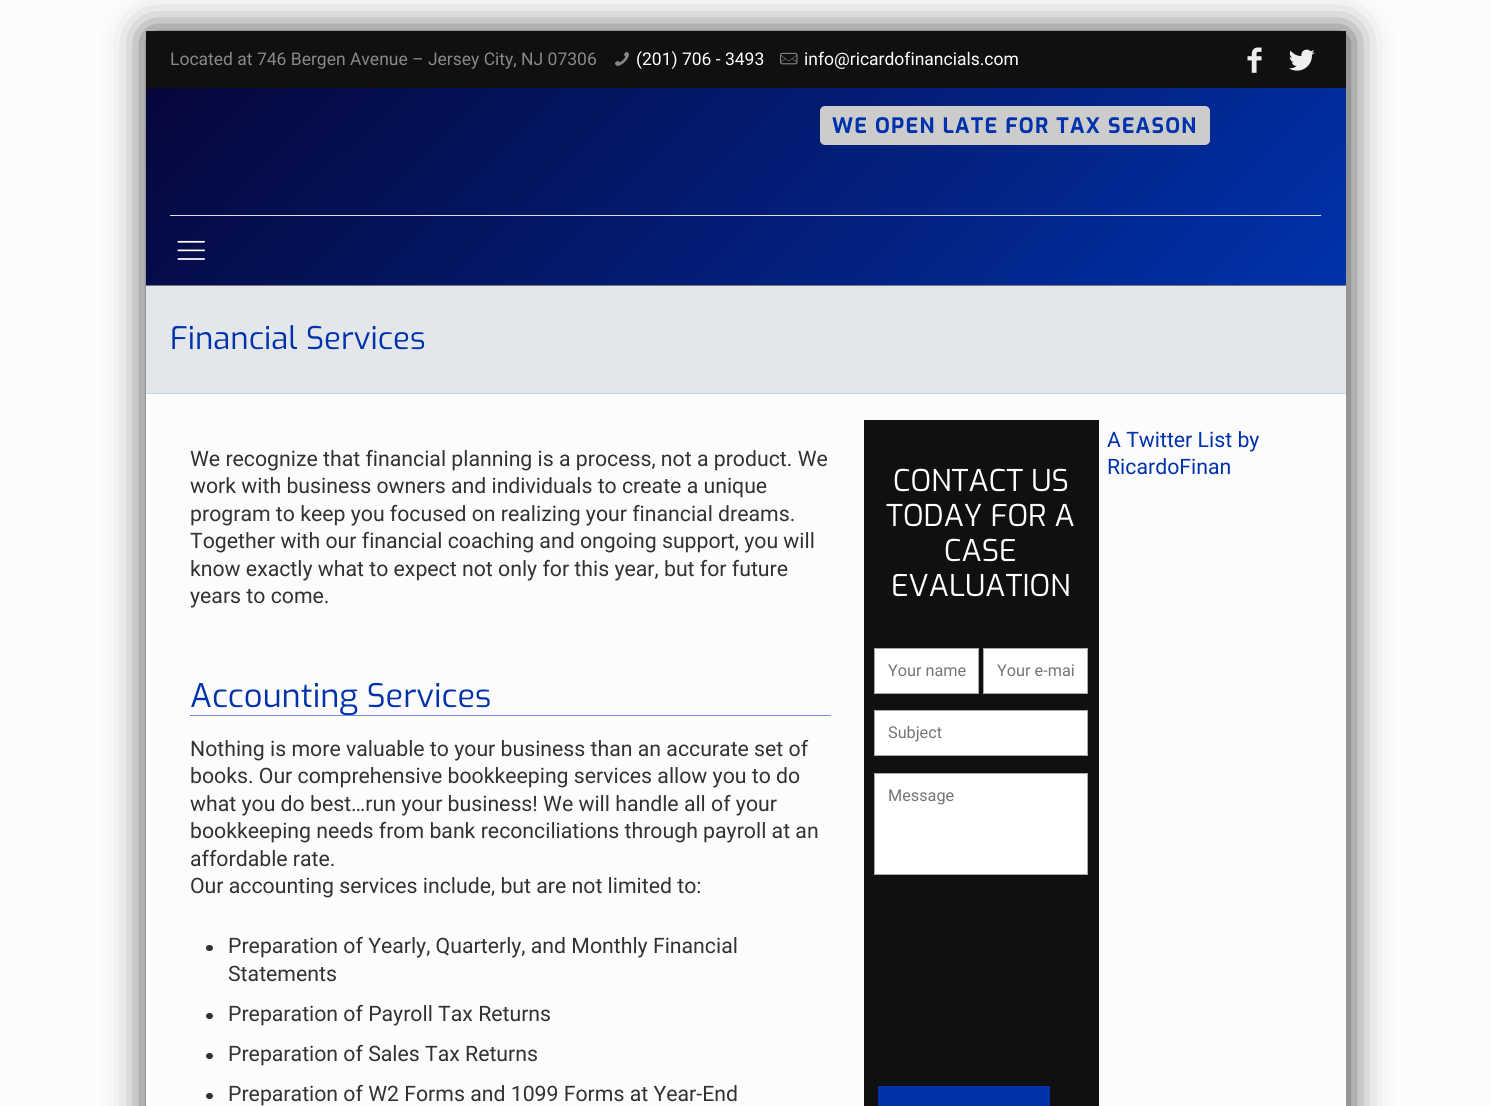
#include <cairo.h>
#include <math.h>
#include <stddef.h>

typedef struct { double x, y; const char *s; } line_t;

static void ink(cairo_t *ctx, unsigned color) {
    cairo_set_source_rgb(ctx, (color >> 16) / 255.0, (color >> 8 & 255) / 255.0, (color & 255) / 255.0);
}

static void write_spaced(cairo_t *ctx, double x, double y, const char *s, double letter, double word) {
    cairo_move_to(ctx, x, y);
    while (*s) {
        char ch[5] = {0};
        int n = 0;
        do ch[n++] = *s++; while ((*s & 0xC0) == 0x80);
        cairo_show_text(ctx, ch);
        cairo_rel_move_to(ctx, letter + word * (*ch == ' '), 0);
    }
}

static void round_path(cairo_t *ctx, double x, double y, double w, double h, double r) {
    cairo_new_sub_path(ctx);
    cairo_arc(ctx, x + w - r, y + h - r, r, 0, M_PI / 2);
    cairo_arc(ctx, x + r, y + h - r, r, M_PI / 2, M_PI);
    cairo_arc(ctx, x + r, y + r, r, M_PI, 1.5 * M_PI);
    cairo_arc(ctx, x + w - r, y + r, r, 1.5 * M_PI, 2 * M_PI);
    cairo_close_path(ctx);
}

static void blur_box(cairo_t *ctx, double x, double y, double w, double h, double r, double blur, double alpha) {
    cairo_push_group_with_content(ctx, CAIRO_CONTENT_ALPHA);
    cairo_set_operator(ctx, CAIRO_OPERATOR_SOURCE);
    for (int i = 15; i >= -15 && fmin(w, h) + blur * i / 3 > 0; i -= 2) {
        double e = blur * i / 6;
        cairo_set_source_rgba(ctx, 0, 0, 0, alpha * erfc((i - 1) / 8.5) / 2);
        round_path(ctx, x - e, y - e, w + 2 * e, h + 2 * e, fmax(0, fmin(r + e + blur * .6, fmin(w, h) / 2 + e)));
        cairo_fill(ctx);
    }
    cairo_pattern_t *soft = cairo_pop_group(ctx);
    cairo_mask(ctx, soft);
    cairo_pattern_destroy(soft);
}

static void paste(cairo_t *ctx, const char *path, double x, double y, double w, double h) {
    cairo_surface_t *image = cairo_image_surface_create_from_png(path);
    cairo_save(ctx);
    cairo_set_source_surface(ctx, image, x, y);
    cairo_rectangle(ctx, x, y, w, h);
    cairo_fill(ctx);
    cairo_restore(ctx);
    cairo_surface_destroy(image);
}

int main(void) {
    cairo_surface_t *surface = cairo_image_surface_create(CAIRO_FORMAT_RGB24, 1491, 1106);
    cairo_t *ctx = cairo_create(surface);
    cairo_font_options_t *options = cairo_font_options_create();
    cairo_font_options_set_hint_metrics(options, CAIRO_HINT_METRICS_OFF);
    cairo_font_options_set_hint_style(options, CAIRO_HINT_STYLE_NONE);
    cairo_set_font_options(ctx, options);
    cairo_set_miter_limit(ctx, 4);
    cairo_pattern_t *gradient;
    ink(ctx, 0xFCFCFC);
    cairo_paint(ctx);
    ink(ctx, 0x303030);
    blur_box(ctx, 148, 33, 1200, 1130, 0, 19, 1);
    ink(ctx, 0xFCFCFC);
    cairo_rectangle(ctx, 146, 394, 1200, 712);
    cairo_fill(ctx);
    ink(ctx, 0x101010);
    cairo_rectangle(ctx, 146, 31, 1200, 57);
    cairo_fill(ctx);
    cairo_select_font_face(ctx, "Roboto", CAIRO_FONT_SLANT_NORMAL, CAIRO_FONT_WEIGHT_NORMAL);
    cairo_set_font_size(ctx, 17.5);
    ink(ctx, 0x888888);
    cairo_move_to(ctx, 170, 65);
    cairo_show_text(ctx, "Located at 746 Bergen Avenue – Jersey City, NJ 07306");
    paste(ctx, "media/1.png", 615, 51, 14, 15);
    ink(ctx, 0xFFFFFF);
    cairo_move_to(ctx, 636, 65);
    cairo_show_text(ctx, "(201) 706 - 3493");
    paste(ctx, "media/2.png", 780, 52, 18, 13);
    cairo_move_to(ctx, 804, 65);
    cairo_show_text(ctx, "info@ricardofinancials.com");
    paste(ctx, "media/3.png", 1247, 47, 15, 26);
    paste(ctx, "media/4.png", 1289, 49, 26, 22);
    gradient = cairo_pattern_create_linear(397, -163, 1096, 537);
    cairo_pattern_add_color_stop_rgba(gradient, 0, 0.024, 0.024, 0.231, 1);
    cairo_pattern_add_color_stop_rgba(gradient, 1, 0, 0.196, 0.671, 1);
    cairo_set_source(ctx, gradient);
    cairo_pattern_destroy(gradient);
    cairo_rectangle(ctx, 146, 88, 1200, 197);
    cairo_fill(ctx);
    ink(ctx, 0x777777);
    cairo_rectangle(ctx, 146, 285, 1200, 1);
    cairo_fill(ctx);
    ink(ctx, 0xCCCCCC);
    round_path(ctx, 820, 106, 390, 39, 5);
    cairo_fill(ctx);
    cairo_select_font_face(ctx, "Exo", CAIRO_FONT_SLANT_NORMAL, CAIRO_FONT_WEIGHT_BOLD);
    cairo_set_font_size(ctx, 21.25);
    ink(ctx, 0x0032AB);
    write_spaced(ctx, 832, 133, "WE OPEN LATE FOR TAX SEASON", 1.25, 0);
    ink(ctx, 0xDDDDDD);
    cairo_rectangle(ctx, 170, 215, 1151, 1);
    cairo_fill(ctx);
    paste(ctx, "media/5.png", 177, 240, 28, 20);
    ink(ctx, 0xE3E6EA);
    cairo_rectangle(ctx, 146, 286, 1200, 107);
    cairo_fill(ctx);
    ink(ctx, 0xC3D8E0);
    cairo_rectangle(ctx, 146, 393, 1200, 1);
    cairo_fill(ctx);
    cairo_select_font_face(ctx, "Exo", CAIRO_FONT_SLANT_NORMAL, CAIRO_FONT_WEIGHT_NORMAL);
    cairo_set_font_size(ctx, 31.25);
    ink(ctx, 0x0032AB);
    cairo_move_to(ctx, 170, 349);
    cairo_show_text(ctx, "Financial Services");
    cairo_select_font_face(ctx, "Roboto", CAIRO_FONT_SLANT_NORMAL, CAIRO_FONT_WEIGHT_NORMAL);
    cairo_set_font_size(ctx, 21.25);
    ink(ctx, 0x323232);
    {
        static const line_t items[] = {
            {190, 466, "We recognize that financial planning is a process, not a product. We"},
            {190, 493, "work with business owners and individuals to create a unique"},
            {190, 521, "program to keep you focused on realizing your financial dreams."},
            {190, 548, "Together with our financial coaching and ongoing support, you will"},
            {190, 576, "know exactly what to expect not only for this year, but for future"},
            {190, 603, "years to come."},
        };
        for (size_t i = 0; i < sizeof items / sizeof *items; i++) {
            cairo_move_to(ctx, items[i].x, items[i].y);
            cairo_show_text(ctx, items[i].s);
        }
    }
    ink(ctx, 0x6D8FDD);
    cairo_rectangle(ctx, 190, 715, 641, 1);
    cairo_fill(ctx);
    cairo_select_font_face(ctx, "Exo", CAIRO_FONT_SLANT_NORMAL, CAIRO_FONT_WEIGHT_NORMAL);
    cairo_set_font_size(ctx, 32.5);
    ink(ctx, 0x0032AB);
    cairo_move_to(ctx, 190, 707);
    cairo_show_text(ctx, "Accounting Services");
    cairo_select_font_face(ctx, "Roboto", CAIRO_FONT_SLANT_NORMAL, CAIRO_FONT_WEIGHT_NORMAL);
    cairo_set_font_size(ctx, 21.25);
    ink(ctx, 0x323232);
    {
        static const line_t items[] = {
            {190, 756, "Nothing is more valuable to your business than an accurate set of"},
            {190, 783, "books. Our comprehensive bookkeeping services allow you to do"},
            {190, 811, "what you do best…run your business! We will handle all of your"},
            {190, 838, "bookkeeping needs from bank reconciliations through payroll at an"},
            {190, 866, "affordable rate."},
            {190, 893, "Our accounting services include, but are not limited to:"},
        };
        for (size_t i = 0; i < sizeof items / sizeof *items; i++) {
            cairo_move_to(ctx, items[i].x, items[i].y);
            cairo_show_text(ctx, items[i].s);
        }
    }
    round_path(ctx, 206, 945, 7, 6, 3);
    cairo_fill(ctx);
    cairo_move_to(ctx, 228, 953);
    cairo_show_text(ctx, "Preparation of Yearly, Quarterly, and Monthly Financial");
    cairo_move_to(ctx, 228, 981);
    cairo_show_text(ctx, "Statements");
    round_path(ctx, 206, 1013, 7, 6, 3);
    cairo_fill(ctx);
    cairo_move_to(ctx, 228, 1021);
    cairo_show_text(ctx, "Preparation of Payroll Tax Returns");
    round_path(ctx, 206, 1053, 7, 6, 3);
    cairo_fill(ctx);
    cairo_move_to(ctx, 228, 1061);
    cairo_show_text(ctx, "Preparation of Sales Tax Returns");
    round_path(ctx, 206, 1093, 7, 6, 3);
    cairo_fill(ctx);
    cairo_move_to(ctx, 228, 1101);
    cairo_show_text(ctx, "Preparation of W2 Forms and 1099 Forms at Year-End");
    ink(ctx, 0x101010);
    cairo_rectangle(ctx, 864, 420, 235, 686);
    cairo_fill(ctx);
    cairo_select_font_face(ctx, "Exo", CAIRO_FONT_SLANT_NORMAL, CAIRO_FONT_WEIGHT_NORMAL);
    cairo_set_font_size(ctx, 30);
    ink(ctx, 0xFFFFFF);
    {
        static const line_t items[] = {
            {893, 491, "CONTACT US"},
            {886, 526, "TODAY FOR A"},
            {944, 561, "CASE"},
            {891, 596, "EVALUATION"},
        };
        for (size_t i = 0; i < sizeof items / sizeof *items; i++) {
            cairo_move_to(ctx, items[i].x, items[i].y);
            cairo_show_text(ctx, items[i].s);
        }
    }
    cairo_rectangle(ctx, 874.5, 648.5, 104, 45);
    cairo_fill_preserve(ctx);
    ink(ctx, 0xA9A9A9);
    cairo_set_line_width(ctx, 1);
    cairo_stroke(ctx);
    cairo_select_font_face(ctx, "Roboto", CAIRO_FONT_SLANT_NORMAL, CAIRO_FONT_WEIGHT_NORMAL);
    cairo_set_font_size(ctx, 16.25);
    ink(ctx, 0x757575);
    cairo_move_to(ctx, 888, 676);
    cairo_show_text(ctx, "Your name");
    ink(ctx, 0xFFFFFF);
    cairo_rectangle(ctx, 983.5, 648.5, 104, 45);
    cairo_fill_preserve(ctx);
    ink(ctx, 0xA9A9A9);
    cairo_stroke(ctx);
    ink(ctx, 0x757575);
    cairo_move_to(ctx, 997, 676);
    cairo_show_text(ctx, "Your e-mai");
    ink(ctx, 0xFFFFFF);
    cairo_rectangle(ctx, 874.5, 710.5, 213, 45);
    cairo_fill_preserve(ctx);
    ink(ctx, 0xA9A9A9);
    cairo_stroke(ctx);
    ink(ctx, 0x757575);
    cairo_move_to(ctx, 888, 738);
    cairo_show_text(ctx, "Subject");
    ink(ctx, 0xFFFFFF);
    cairo_rectangle(ctx, 874.5, 773.5, 213, 101);
    cairo_fill_preserve(ctx);
    ink(ctx, 0xA9A9A9);
    cairo_stroke(ctx);
    ink(ctx, 0x757575);
    cairo_move_to(ctx, 888, 801);
    cairo_show_text(ctx, "Message");
    ink(ctx, 0x0032AB);
    cairo_rectangle(ctx, 878, 1086, 172, 20);
    cairo_fill(ctx);
    cairo_set_font_size(ctx, 21.25);
    cairo_move_to(ctx, 1107, 447);
    cairo_show_text(ctx, "A Twitter List by");
    cairo_move_to(ctx, 1107, 474);
    cairo_show_text(ctx, "RicardoFinan");
    cairo_surface_write_to_png(surface, "image.png");
    cairo_font_options_destroy(options);
    cairo_destroy(ctx);
    cairo_surface_destroy(surface);
    return 0;
}
